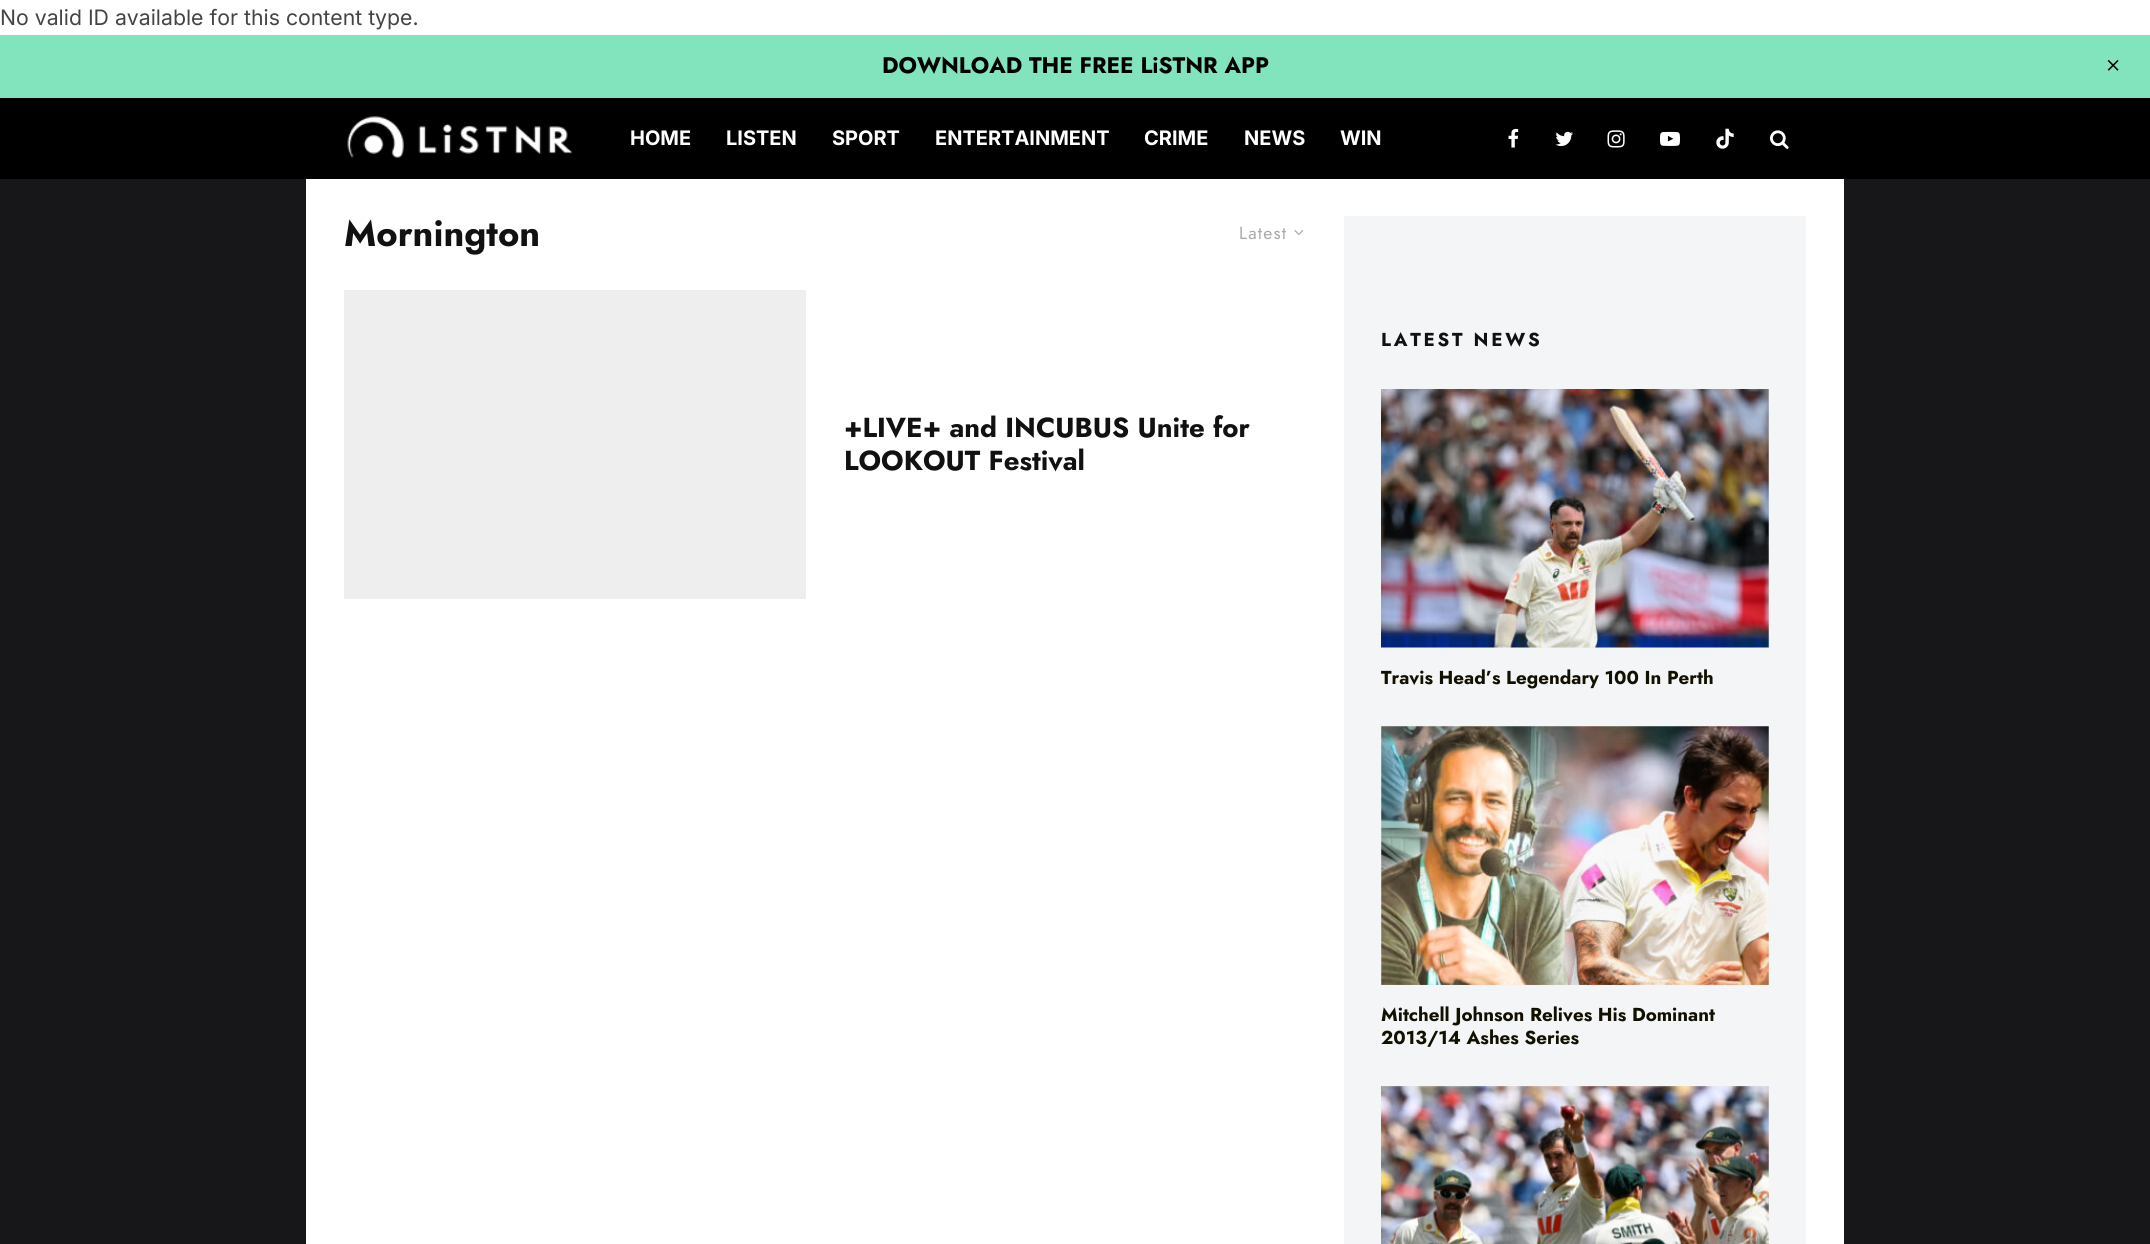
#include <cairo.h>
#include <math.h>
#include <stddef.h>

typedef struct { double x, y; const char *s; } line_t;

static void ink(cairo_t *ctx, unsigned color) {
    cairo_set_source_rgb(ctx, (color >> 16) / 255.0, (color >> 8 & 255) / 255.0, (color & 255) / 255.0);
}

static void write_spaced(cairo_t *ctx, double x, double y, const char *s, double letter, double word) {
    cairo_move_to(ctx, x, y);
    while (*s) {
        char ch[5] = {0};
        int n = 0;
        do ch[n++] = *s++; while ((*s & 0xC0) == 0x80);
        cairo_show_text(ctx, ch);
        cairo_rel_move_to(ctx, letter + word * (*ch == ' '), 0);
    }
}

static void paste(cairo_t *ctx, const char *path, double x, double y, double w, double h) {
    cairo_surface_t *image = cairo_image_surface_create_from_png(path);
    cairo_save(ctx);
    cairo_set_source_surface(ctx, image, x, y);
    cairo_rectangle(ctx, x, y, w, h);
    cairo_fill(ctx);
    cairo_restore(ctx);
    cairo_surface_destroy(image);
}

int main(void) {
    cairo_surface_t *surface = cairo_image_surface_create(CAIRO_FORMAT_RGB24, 2150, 1244);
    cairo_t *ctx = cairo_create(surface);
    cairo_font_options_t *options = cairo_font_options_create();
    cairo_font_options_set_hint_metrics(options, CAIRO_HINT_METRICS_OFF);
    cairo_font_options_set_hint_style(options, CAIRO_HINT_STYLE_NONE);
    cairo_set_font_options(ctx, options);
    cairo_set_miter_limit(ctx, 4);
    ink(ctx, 0xFFFFFF);
    cairo_paint(ctx);
    cairo_select_font_face(ctx, "Inter", CAIRO_FONT_SLANT_NORMAL, CAIRO_FONT_WEIGHT_NORMAL);
    cairo_set_font_size(ctx, 21.25);
    ink(ctx, 0x444444);
    cairo_move_to(ctx, 0, 25);
    cairo_show_text(ctx, "No valid ID available for this content type.");
    ink(ctx, 0x17171A);
    cairo_rectangle(ctx, 0, 179, 2150, 1065);
    cairo_fill(ctx);
    ink(ctx, 0x81E4BD);
    cairo_rectangle(ctx, 0, 35, 2150, 63);
    cairo_fill(ctx);
    cairo_select_font_face(ctx, "Jost", CAIRO_FONT_SLANT_NORMAL, CAIRO_FONT_WEIGHT_BOLD);
    cairo_set_font_size(ctx, 22.5);
    ink(ctx, 0x000000);
    cairo_move_to(ctx, 882, 73);
    cairo_show_text(ctx, "DOWNLOAD THE FREE LiSTNR APP");
    paste(ctx, "media/1.png", 2107, 60, 12, 11);
    cairo_rectangle(ctx, 0, 98, 2150, 81);
    cairo_fill(ctx);
    paste(ctx, "media/2.png", 347, 116, 226, 42);
    cairo_select_font_face(ctx, "Inter", CAIRO_FONT_SLANT_NORMAL, CAIRO_FONT_WEIGHT_BOLD);
    cairo_set_font_size(ctx, 20);
    ink(ctx, 0xFFFFFF);
    {
        static const line_t items[] = {
            {630, 145, "HOME"},
            {726, 145, "LISTEN"},
            {832, 145, "SPORT"},
            {935, 145, "ENTERTAINMENT"},
            {1144, 145, "CRIME"},
            {1244, 145, "NEWS"},
            {1340, 145, "WIN"},
        };
        for (size_t i = 0; i < sizeof items / sizeof *items; i++) {
            cairo_move_to(ctx, items[i].x, items[i].y);
            cairo_show_text(ctx, items[i].s);
        }
    }
    paste(ctx, "media/3.png", 1508, 128, 11, 20);
    paste(ctx, "media/4.png", 1555, 131, 18, 16);
    paste(ctx, "media/5.png", 1607, 130, 18, 18);
    paste(ctx, "media/6.png", 1660, 131, 20, 15);
    paste(ctx, "media/7.png", 1716, 128, 18, 21);
    paste(ctx, "media/8.png", 1770, 130, 19, 19);
    cairo_rectangle(ctx, 306, 179, 1538, 1065);
    cairo_fill(ctx);
    cairo_select_font_face(ctx, "Jost", CAIRO_FONT_SLANT_NORMAL, CAIRO_FONT_WEIGHT_BOLD);
    cairo_set_font_size(ctx, 36.25);
    ink(ctx, 0x111111);
    cairo_move_to(ctx, 344, 246);
    cairo_show_text(ctx, "Mornington");
    cairo_select_font_face(ctx, "Jost", CAIRO_FONT_SLANT_NORMAL, CAIRO_FONT_WEIGHT_NORMAL);
    cairo_set_font_size(ctx, 17.5);
    ink(ctx, 0xAAAAAA);
    write_spaced(ctx, 1239, 239, "Latest", 1.25, 0);
    paste(ctx, "media/9.png", 1294, 230, 9, 5);
    ink(ctx, 0xEEEEEE);
    cairo_rectangle(ctx, 344, 290, 462, 309);
    cairo_fill(ctx);
    cairo_select_font_face(ctx, "Jost", CAIRO_FONT_SLANT_NORMAL, CAIRO_FONT_WEIGHT_BOLD);
    cairo_set_font_size(ctx, 27.5);
    ink(ctx, 0x111111);
    cairo_move_to(ctx, 844, 437);
    cairo_show_text(ctx, "+LIVE+ and INCUBUS Unite for");
    cairo_move_to(ctx, 844, 470);
    cairo_show_text(ctx, "LOOKOUT Festival");
    ink(ctx, 0xF4F5F6);
    cairo_rectangle(ctx, 1344, 216, 462, 1028);
    cairo_fill(ctx);
    cairo_set_font_size(ctx, 18.75);
    ink(ctx, 0x111111);
    write_spaced(ctx, 1381, 346, "LATEST NEWS", 2.75, 0);
    ink(ctx, 0xEEEEEE);
    cairo_rectangle(ctx, 1381, 389, 388, 259);
    cairo_fill(ctx);
    paste(ctx, "media/10.png", 1381, 389, 388, 259);
    ink(ctx, 0x121001);
    cairo_move_to(ctx, 1381, 684);
    cairo_show_text(ctx, "Travis Head’s Legendary 100 In Perth");
    ink(ctx, 0xEEEEEE);
    cairo_rectangle(ctx, 1381, 726, 388, 259);
    cairo_fill(ctx);
    paste(ctx, "media/11.png", 1381, 726, 388, 259);
    ink(ctx, 0x121001);
    cairo_move_to(ctx, 1381, 1021);
    cairo_show_text(ctx, "Mitchell Johnson Relives His Dominant");
    cairo_move_to(ctx, 1381, 1044);
    cairo_show_text(ctx, "2013/14 Ashes Series");
    ink(ctx, 0xEEEEEE);
    cairo_rectangle(ctx, 1381, 1086, 388, 158);
    cairo_fill(ctx);
    paste(ctx, "media/12.png", 1381, 1086, 388, 158);
    cairo_surface_write_to_png(surface, "image.png");
    cairo_font_options_destroy(options);
    cairo_destroy(ctx);
    cairo_surface_destroy(surface);
    return 0;
}
